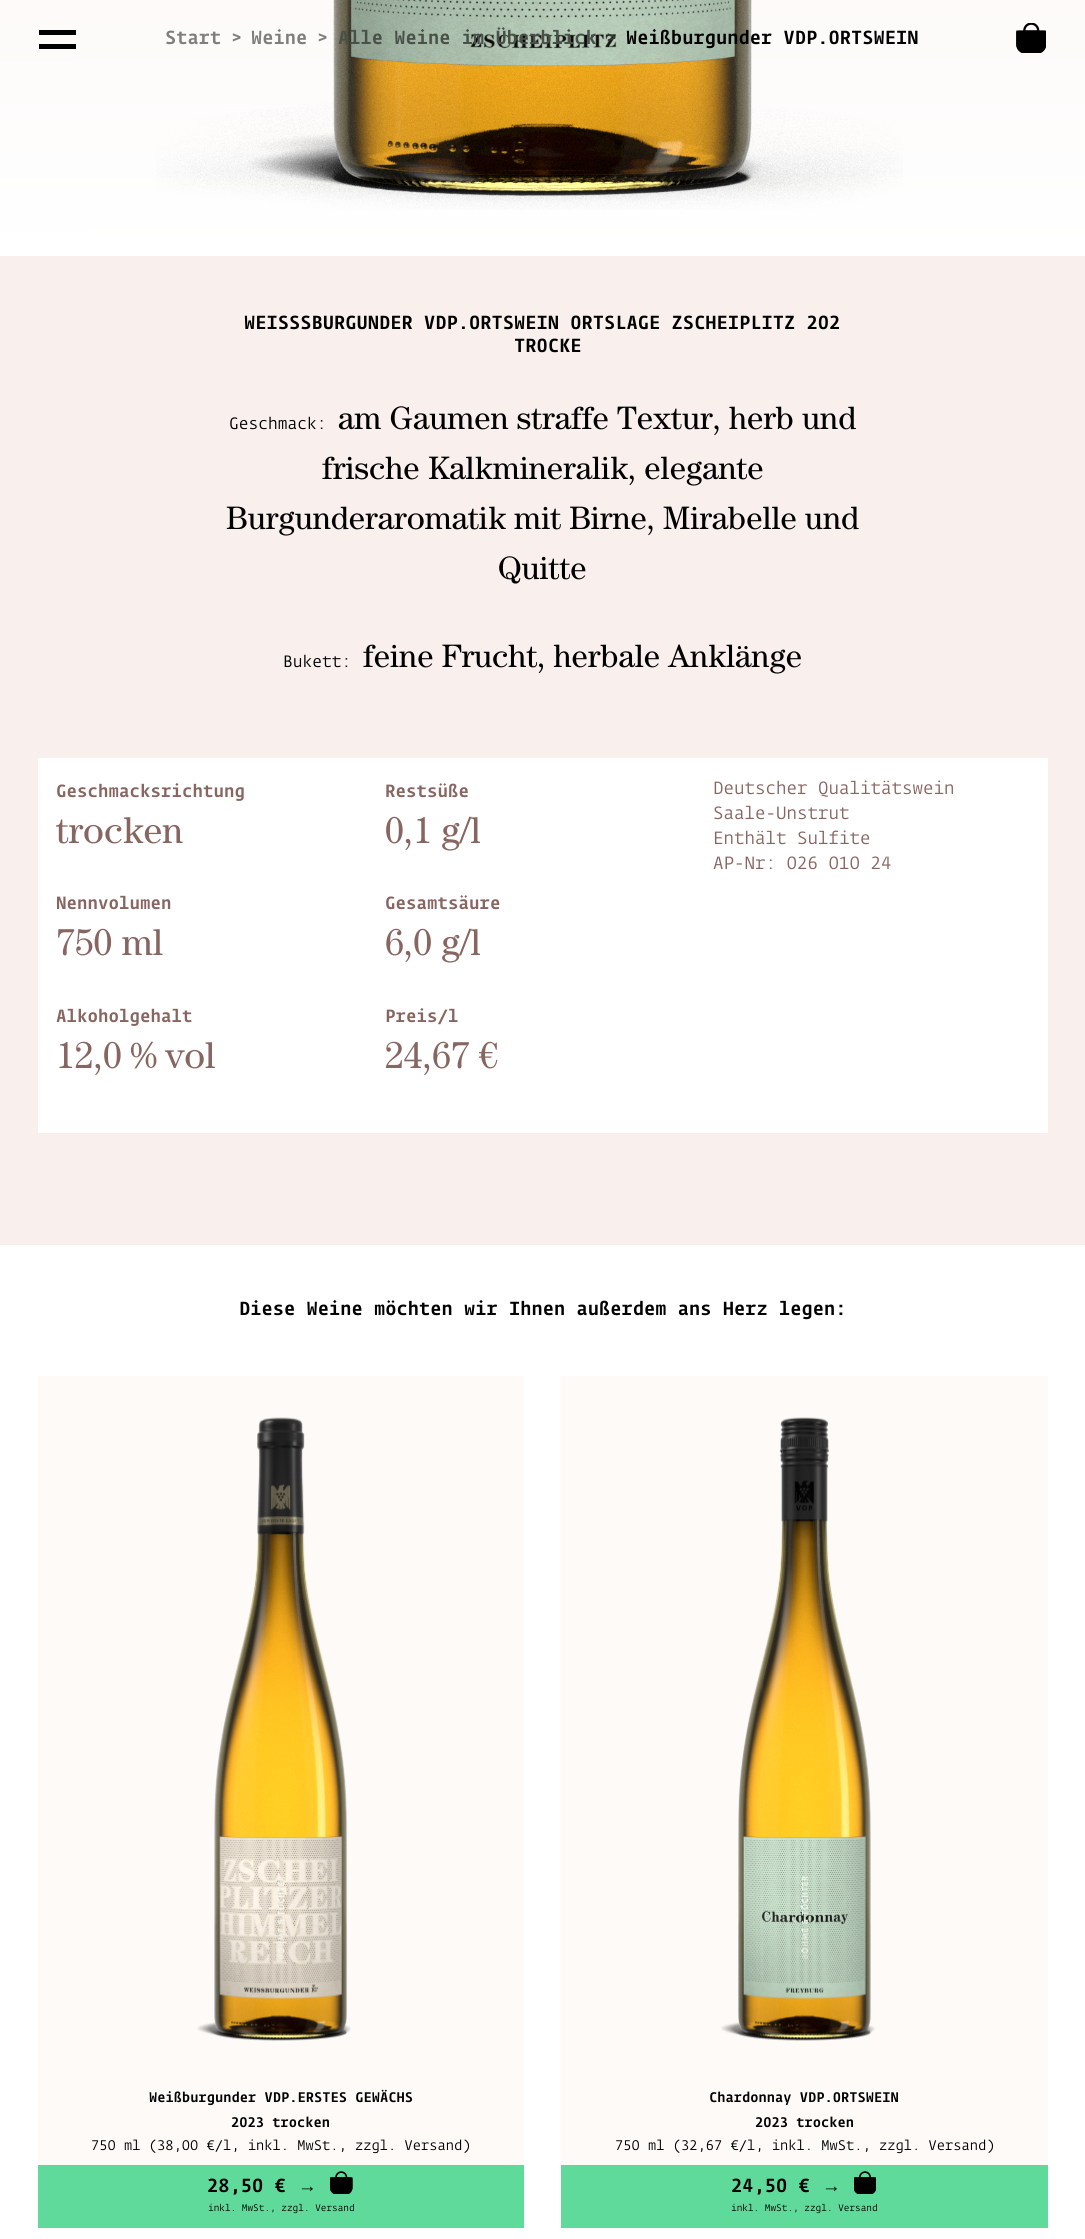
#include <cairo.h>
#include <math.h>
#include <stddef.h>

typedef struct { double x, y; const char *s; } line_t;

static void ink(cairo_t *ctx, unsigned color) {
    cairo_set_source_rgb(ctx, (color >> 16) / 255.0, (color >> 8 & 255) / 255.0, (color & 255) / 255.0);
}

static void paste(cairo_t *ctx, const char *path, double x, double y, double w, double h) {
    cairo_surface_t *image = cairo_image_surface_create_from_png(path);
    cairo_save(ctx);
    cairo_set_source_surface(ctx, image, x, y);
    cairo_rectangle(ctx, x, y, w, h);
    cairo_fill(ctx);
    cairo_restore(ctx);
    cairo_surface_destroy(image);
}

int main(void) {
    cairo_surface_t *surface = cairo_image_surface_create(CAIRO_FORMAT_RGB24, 1085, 2239);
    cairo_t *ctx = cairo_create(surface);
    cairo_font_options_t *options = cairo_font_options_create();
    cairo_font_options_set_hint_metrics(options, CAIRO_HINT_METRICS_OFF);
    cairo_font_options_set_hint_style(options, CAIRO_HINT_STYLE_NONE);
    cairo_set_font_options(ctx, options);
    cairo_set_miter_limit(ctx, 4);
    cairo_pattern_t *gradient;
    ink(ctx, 0xF9F0ED);
    cairo_paint(ctx);
    gradient = cairo_pattern_create_linear(542, -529, 543, 256);
    cairo_pattern_add_color_stop_rgba(gradient, 0, 0.976, 0.941, 0.929, 1);
    cairo_pattern_add_color_stop_rgba(gradient, 1, 1, 1, 1, 1);
    cairo_set_source(ctx, gradient);
    cairo_pattern_destroy(gradient);
    cairo_rectangle(ctx, 0, 0, 1085, 256);
    cairo_fill(ctx);
    ink(ctx, 0x000000);
    cairo_rectangle(ctx, 39, 30, 37, 5);
    cairo_fill(ctx);
    cairo_rectangle(ctx, 39, 44, 37, 5);
    cairo_fill(ctx);
    paste(ctx, "media/1.png", 1016, 23, 30, 30);
    paste(ctx, "media/2.png", 156, 0, 747, 210);
    cairo_select_font_face(ctx, "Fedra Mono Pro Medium", CAIRO_FONT_SLANT_NORMAL, CAIRO_FONT_WEIGHT_NORMAL);
    cairo_set_font_size(ctx, 18.75);
    ink(ctx, 0x7F7E7D);
    {
        static const line_t items[] = {
            {165, 44, "Start"},
            {231, 44, ">"},
            {251, 44, "Weine"},
            {317, 44, ">"},
        };
        for (size_t i = 0; i < sizeof items / sizeof *items; i++) {
            cairo_move_to(ctx, items[i].x, items[i].y);
            cairo_show_text(ctx, items[i].s);
        }
    }
    ink(ctx, 0x485048);
    cairo_move_to(ctx, 338, 44);
    cairo_show_text(ctx, "Alle Weine im Überblick");
    ink(ctx, 0x343934);
    cairo_move_to(ctx, 606, 44);
    cairo_show_text(ctx, ">");
    ink(ctx, 0x000000);
    {
        static const line_t items[] = {
            {626, 44, "Weißburgunder VDP.ORTSWEIN"},
            {244, 329, "WEISSSBURGUNDER VDP.ORTSWEIN ORTSLAGE ZSCHEIPLITZ 202"},
            {514, 352, "TROCKE"},
        };
        for (size_t i = 0; i < sizeof items / sizeof *items; i++) {
            cairo_move_to(ctx, items[i].x, items[i].y);
            cairo_show_text(ctx, items[i].s);
        }
    }
    cairo_select_font_face(ctx, "Fedra Mono Pro", CAIRO_FONT_SLANT_NORMAL, CAIRO_FONT_WEIGHT_NORMAL);
    cairo_set_font_size(ctx, 16.25);
    cairo_move_to(ctx, 229, 429);
    cairo_show_text(ctx, "Geschmack:");
    cairo_select_font_face(ctx, "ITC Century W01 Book", CAIRO_FONT_SLANT_NORMAL, CAIRO_FONT_WEIGHT_NORMAL);
    cairo_set_font_size(ctx, 32.5);
    {
        static const line_t items[] = {
            {338, 429, "am Gaumen straffe Textur, herb und"},
            {322, 479, "frische Kalkmineralik, elegante"},
            {226, 529, "Burgunderaromatik mit Birne, Mirabelle und"},
            {498, 579, "Quitte"},
        };
        for (size_t i = 0; i < sizeof items / sizeof *items; i++) {
            cairo_move_to(ctx, items[i].x, items[i].y);
            cairo_show_text(ctx, items[i].s);
        }
    }
    cairo_select_font_face(ctx, "Fedra Mono Pro", CAIRO_FONT_SLANT_NORMAL, CAIRO_FONT_WEIGHT_NORMAL);
    cairo_set_font_size(ctx, 16.25);
    cairo_move_to(ctx, 283, 667);
    cairo_show_text(ctx, "Bukett:");
    cairo_select_font_face(ctx, "ITC Century W01 Book", CAIRO_FONT_SLANT_NORMAL, CAIRO_FONT_WEIGHT_NORMAL);
    cairo_set_font_size(ctx, 32.5);
    cairo_move_to(ctx, 363, 667);
    cairo_show_text(ctx, "feine Frucht, herbale Anklänge");
    ink(ctx, 0xFFFFFF);
    cairo_rectangle(ctx, 38, 758, 1010, 375);
    cairo_fill(ctx);
    cairo_select_font_face(ctx, "Fedra Mono Pro Medium", CAIRO_FONT_SLANT_NORMAL, CAIRO_FONT_WEIGHT_NORMAL);
    cairo_set_font_size(ctx, 17.5);
    ink(ctx, 0x876560);
    cairo_move_to(ctx, 56, 797);
    cairo_show_text(ctx, "Geschmacksrichtung");
    cairo_select_font_face(ctx, "ITC Century W01 Book", CAIRO_FONT_SLANT_NORMAL, CAIRO_FONT_WEIGHT_NORMAL);
    cairo_set_font_size(ctx, 37.5);
    cairo_move_to(ctx, 56, 843);
    cairo_show_text(ctx, "trocken");
    cairo_select_font_face(ctx, "Fedra Mono Pro Medium", CAIRO_FONT_SLANT_NORMAL, CAIRO_FONT_WEIGHT_NORMAL);
    cairo_set_font_size(ctx, 17.5);
    cairo_move_to(ctx, 385, 797);
    cairo_show_text(ctx, "Restsüße");
    cairo_select_font_face(ctx, "ITC Century W01 Book", CAIRO_FONT_SLANT_NORMAL, CAIRO_FONT_WEIGHT_NORMAL);
    cairo_set_font_size(ctx, 37.5);
    cairo_move_to(ctx, 385, 843);
    cairo_show_text(ctx, "0,1 g/l");
    cairo_select_font_face(ctx, "Fedra Mono Pro", CAIRO_FONT_SLANT_NORMAL, CAIRO_FONT_WEIGHT_NORMAL);
    cairo_set_font_size(ctx, 17.5);
    {
        static const line_t items[] = {
            {713, 794, "Deutscher Qualitätswein"},
            {713, 819, "Saale-Unstrut"},
            {713, 844, "Enthält Sulfite"},
            {713, 869, "AP-Nr: 026 010 24"},
        };
        for (size_t i = 0; i < sizeof items / sizeof *items; i++) {
            cairo_move_to(ctx, items[i].x, items[i].y);
            cairo_show_text(ctx, items[i].s);
        }
    }
    cairo_select_font_face(ctx, "Fedra Mono Pro Medium", CAIRO_FONT_SLANT_NORMAL, CAIRO_FONT_WEIGHT_NORMAL);
    cairo_move_to(ctx, 56, 909);
    cairo_show_text(ctx, "Nennvolumen");
    cairo_select_font_face(ctx, "ITC Century W01 Book", CAIRO_FONT_SLANT_NORMAL, CAIRO_FONT_WEIGHT_NORMAL);
    cairo_set_font_size(ctx, 37.5);
    cairo_move_to(ctx, 56, 955);
    cairo_show_text(ctx, "750 ml");
    cairo_select_font_face(ctx, "Fedra Mono Pro Medium", CAIRO_FONT_SLANT_NORMAL, CAIRO_FONT_WEIGHT_NORMAL);
    cairo_set_font_size(ctx, 17.5);
    cairo_move_to(ctx, 385, 909);
    cairo_show_text(ctx, "Gesamtsäure");
    cairo_select_font_face(ctx, "ITC Century W01 Book", CAIRO_FONT_SLANT_NORMAL, CAIRO_FONT_WEIGHT_NORMAL);
    cairo_set_font_size(ctx, 37.5);
    cairo_move_to(ctx, 385, 955);
    cairo_show_text(ctx, "6,0 g/l");
    cairo_select_font_face(ctx, "Fedra Mono Pro Medium", CAIRO_FONT_SLANT_NORMAL, CAIRO_FONT_WEIGHT_NORMAL);
    cairo_set_font_size(ctx, 17.5);
    cairo_move_to(ctx, 56, 1022);
    cairo_show_text(ctx, "Alkoholgehalt");
    cairo_select_font_face(ctx, "ITC Century W01 Book", CAIRO_FONT_SLANT_NORMAL, CAIRO_FONT_WEIGHT_NORMAL);
    cairo_set_font_size(ctx, 37.5);
    cairo_move_to(ctx, 56, 1068);
    cairo_show_text(ctx, "12,0 % vol");
    cairo_select_font_face(ctx, "Fedra Mono Pro Medium", CAIRO_FONT_SLANT_NORMAL, CAIRO_FONT_WEIGHT_NORMAL);
    cairo_set_font_size(ctx, 17.5);
    cairo_move_to(ctx, 385, 1022);
    cairo_show_text(ctx, "Preis/l");
    cairo_select_font_face(ctx, "ITC Century W01 Book", CAIRO_FONT_SLANT_NORMAL, CAIRO_FONT_WEIGHT_NORMAL);
    cairo_set_font_size(ctx, 37.5);
    cairo_move_to(ctx, 385, 1068);
    cairo_show_text(ctx, "24,67 €");
    ink(ctx, 0xFFFFFF);
    cairo_rectangle(ctx, 0, 1245, 1085, 994);
    cairo_fill(ctx);
    cairo_select_font_face(ctx, "Fedra Mono Pro Medium", CAIRO_FONT_SLANT_NORMAL, CAIRO_FONT_WEIGHT_NORMAL);
    cairo_set_font_size(ctx, 18.75);
    ink(ctx, 0x000000);
    cairo_move_to(ctx, 239, 1315);
    cairo_show_text(ctx, "Diese Weine möchten wir Ihnen außerdem ans Herz legen:");
    ink(ctx, 0xFDFAF8);
    cairo_rectangle(ctx, 38, 1376, 486, 789);
    cairo_fill(ctx);
    paste(ctx, "media/3.png", 197, 1417, 154, 624);
    cairo_set_font_size(ctx, 13.75);
    ink(ctx, 0x000000);
    cairo_move_to(ctx, 149, 2102);
    cairo_show_text(ctx, "Weißburgunder VDP.ERSTES GEWÄCHS");
    cairo_move_to(ctx, 231, 2127);
    cairo_show_text(ctx, "2023 trocken");
    cairo_select_font_face(ctx, "Fedra Mono Pro", CAIRO_FONT_SLANT_NORMAL, CAIRO_FONT_WEIGHT_NORMAL);
    cairo_move_to(ctx, 91, 2150);
    cairo_show_text(ctx, "750 ml (38,00 €/l, inkl. MwSt., zzgl. Versand)");
    ink(ctx, 0x5FDA9B);
    cairo_rectangle(ctx, 38, 2165, 486, 63);
    cairo_fill(ctx);
    cairo_select_font_face(ctx, "Fedra Mono Pro Medium", CAIRO_FONT_SLANT_NORMAL, CAIRO_FONT_WEIGHT_NORMAL);
    cairo_set_font_size(ctx, 18.75);
    ink(ctx, 0x000000);
    cairo_move_to(ctx, 207, 2192);
    cairo_show_text(ctx, "28,50 €");
    cairo_select_font_face(ctx, "Liberation Sans", CAIRO_FONT_SLANT_NORMAL, CAIRO_FONT_WEIGHT_NORMAL);
    cairo_move_to(ctx, 298, 2192);
    cairo_show_text(ctx, "→");
    paste(ctx, "media/4.png", 330, 2171, 23, 23);
    cairo_select_font_face(ctx, "Fedra Mono Pro", CAIRO_FONT_SLANT_NORMAL, CAIRO_FONT_WEIGHT_NORMAL);
    cairo_set_font_size(ctx, 9.4);
    cairo_move_to(ctx, 208, 2211);
    cairo_show_text(ctx, "inkl. MwSt., zzgl. Versand");
    ink(ctx, 0xFDFAF8);
    cairo_rectangle(ctx, 561, 1376, 487, 789);
    cairo_fill(ctx);
    paste(ctx, "media/5.png", 721, 1417, 154, 624);
    cairo_select_font_face(ctx, "Fedra Mono Pro Medium", CAIRO_FONT_SLANT_NORMAL, CAIRO_FONT_WEIGHT_NORMAL);
    cairo_set_font_size(ctx, 13.75);
    ink(ctx, 0x000000);
    cairo_move_to(ctx, 709, 2102);
    cairo_show_text(ctx, "Chardonnay VDP.ORTSWEIN");
    cairo_move_to(ctx, 755, 2127);
    cairo_show_text(ctx, "2023 trocken");
    cairo_select_font_face(ctx, "Fedra Mono Pro", CAIRO_FONT_SLANT_NORMAL, CAIRO_FONT_WEIGHT_NORMAL);
    cairo_move_to(ctx, 615, 2150);
    cairo_show_text(ctx, "750 ml (32,67 €/l, inkl. MwSt., zzgl. Versand)");
    ink(ctx, 0x5FDA9B);
    cairo_rectangle(ctx, 561, 2165, 487, 63);
    cairo_fill(ctx);
    cairo_select_font_face(ctx, "Fedra Mono Pro Medium", CAIRO_FONT_SLANT_NORMAL, CAIRO_FONT_WEIGHT_NORMAL);
    cairo_set_font_size(ctx, 18.75);
    ink(ctx, 0x000000);
    cairo_move_to(ctx, 731, 2192);
    cairo_show_text(ctx, "24,50 €");
    cairo_select_font_face(ctx, "Liberation Sans", CAIRO_FONT_SLANT_NORMAL, CAIRO_FONT_WEIGHT_NORMAL);
    cairo_move_to(ctx, 822, 2192);
    cairo_show_text(ctx, "→");
    paste(ctx, "media/6.png", 854, 2171, 22, 23);
    cairo_select_font_face(ctx, "Fedra Mono Pro", CAIRO_FONT_SLANT_NORMAL, CAIRO_FONT_WEIGHT_NORMAL);
    cairo_set_font_size(ctx, 9.4);
    cairo_move_to(ctx, 731, 2211);
    cairo_show_text(ctx, "inkl. MwSt., zzgl. Versand");
    cairo_surface_write_to_png(surface, "image.png");
    cairo_font_options_destroy(options);
    cairo_destroy(ctx);
    cairo_surface_destroy(surface);
    return 0;
}
